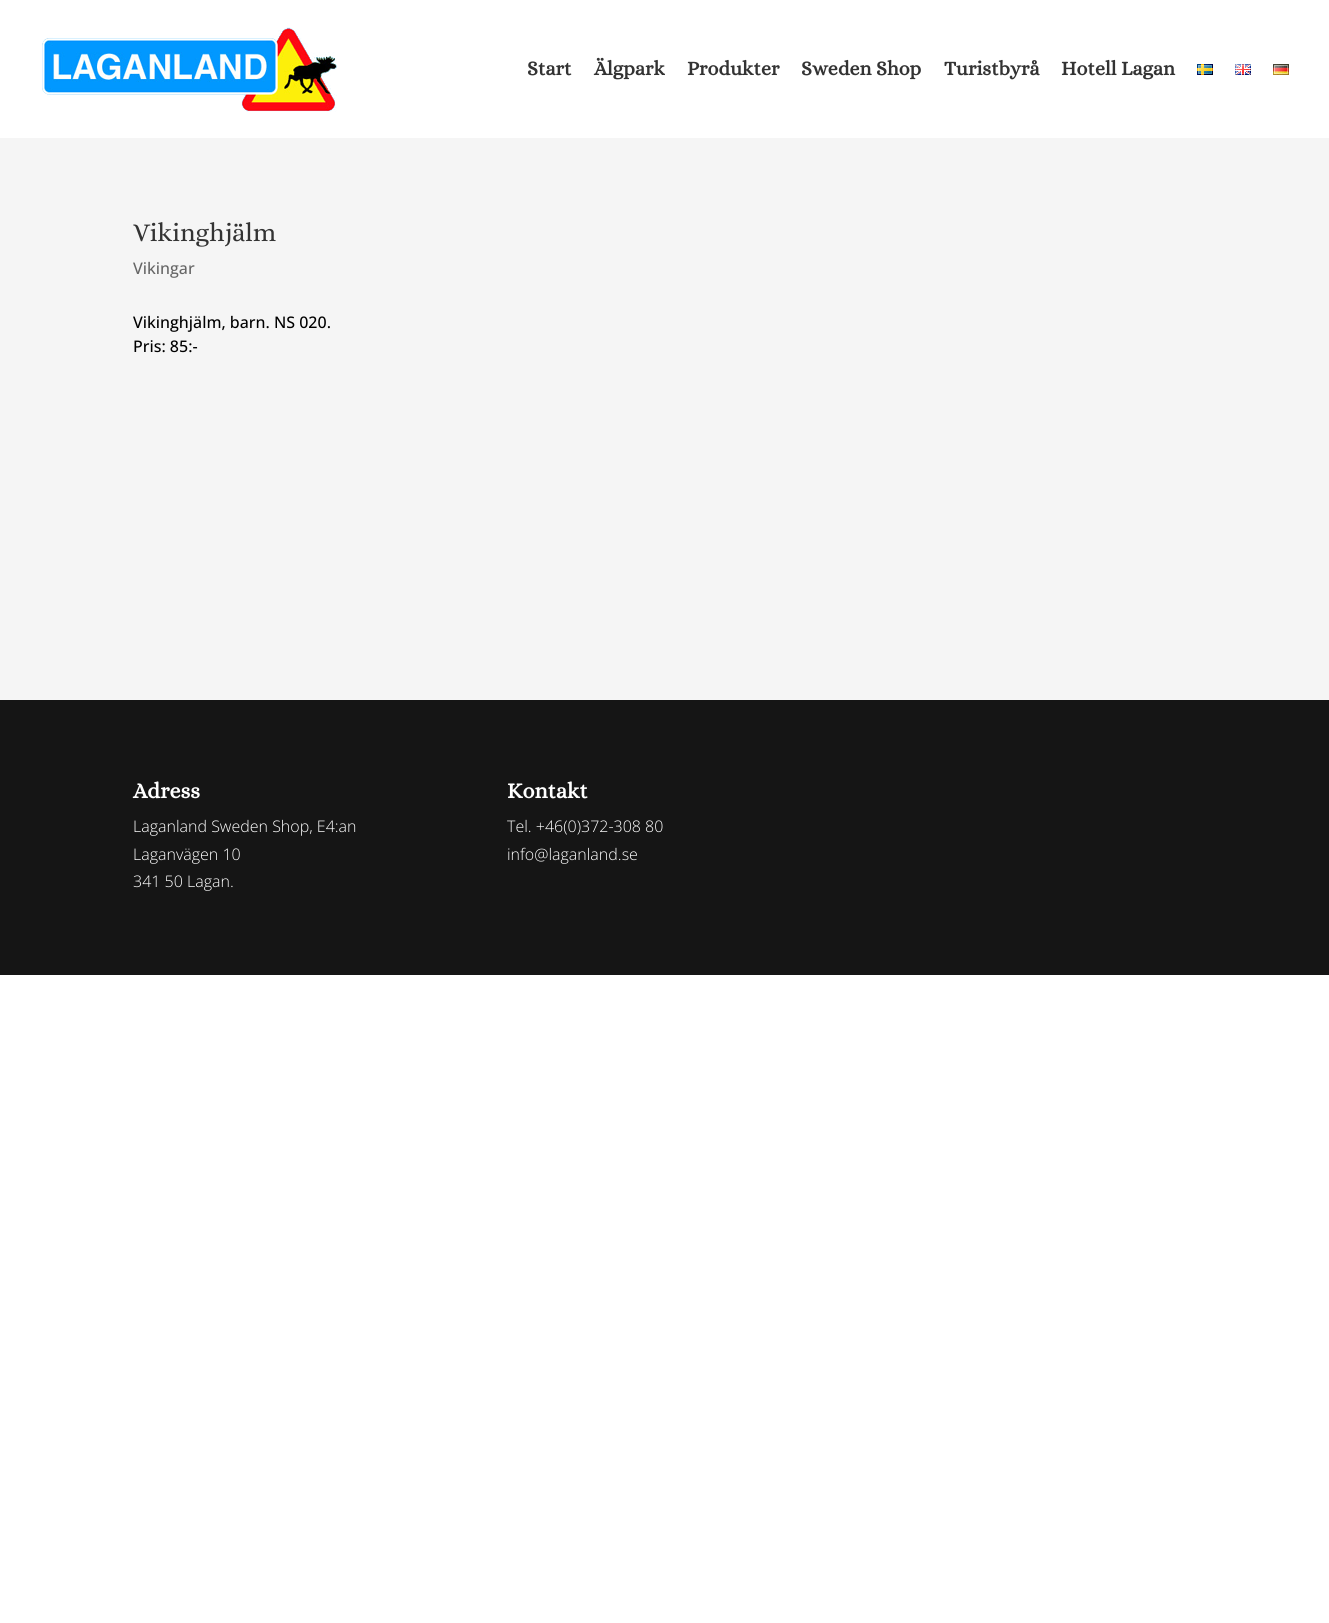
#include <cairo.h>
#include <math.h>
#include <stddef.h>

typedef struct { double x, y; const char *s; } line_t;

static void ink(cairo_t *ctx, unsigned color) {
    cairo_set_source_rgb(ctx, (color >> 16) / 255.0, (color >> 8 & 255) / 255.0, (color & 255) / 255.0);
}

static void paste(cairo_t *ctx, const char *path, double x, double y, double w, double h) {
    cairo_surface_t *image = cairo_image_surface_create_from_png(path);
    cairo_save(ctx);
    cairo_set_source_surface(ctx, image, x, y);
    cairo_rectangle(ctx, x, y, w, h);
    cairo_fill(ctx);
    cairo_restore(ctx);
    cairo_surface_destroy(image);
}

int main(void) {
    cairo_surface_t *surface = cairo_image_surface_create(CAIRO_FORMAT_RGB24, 1329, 1623);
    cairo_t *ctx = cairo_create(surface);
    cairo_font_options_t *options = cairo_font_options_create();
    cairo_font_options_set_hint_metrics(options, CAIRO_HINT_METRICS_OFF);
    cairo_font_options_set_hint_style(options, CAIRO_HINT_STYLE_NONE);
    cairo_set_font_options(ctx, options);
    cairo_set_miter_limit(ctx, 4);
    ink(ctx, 0xFFFFFF);
    cairo_paint(ctx);
    paste(ctx, "media/1.png", 42, 27, 296, 85);
    cairo_select_font_face(ctx, "Alice", CAIRO_FONT_SLANT_NORMAL, CAIRO_FONT_WEIGHT_BOLD);
    cairo_set_font_size(ctx, 20);
    ink(ctx, 0x333333);
    {
        static const line_t items[] = {
            {527, 75, "Start"},
            {594, 75, "Älgpark"},
            {687, 75, "Produkter"},
            {801, 75, "Sweden Shop"},
            {944, 75, "Turistbyrå"},
            {1061, 75, "Hotell Lagan"},
        };
        for (size_t i = 0; i < sizeof items / sizeof *items; i++) {
            cairo_move_to(ctx, items[i].x, items[i].y);
            cairo_show_text(ctx, items[i].s);
        }
    }
    paste(ctx, "media/2.png", 1197, 64, 16, 11);
    paste(ctx, "media/3.png", 1235, 64, 16, 11);
    paste(ctx, "media/4.png", 1273, 64, 16, 11);
    ink(ctx, 0xF5F5F5);
    cairo_rectangle(ctx, 0, 138, 1329, 562);
    cairo_fill(ctx);
    cairo_select_font_face(ctx, "Alice", CAIRO_FONT_SLANT_NORMAL, CAIRO_FONT_WEIGHT_NORMAL);
    cairo_set_font_size(ctx, 26);
    ink(ctx, 0x333333);
    cairo_move_to(ctx, 133, 241);
    cairo_show_text(ctx, "Vikinghjälm");
    cairo_select_font_face(ctx, "Open Sans Medium", CAIRO_FONT_SLANT_NORMAL, CAIRO_FONT_WEIGHT_NORMAL);
    cairo_set_font_size(ctx, 16);
    ink(ctx, 0x666666);
    cairo_move_to(ctx, 133, 274);
    cairo_show_text(ctx, "Vikingar");
    ink(ctx, 0x000000);
    cairo_move_to(ctx, 133, 328);
    cairo_show_text(ctx, "Vikinghjälm, barn. NS 020.");
    cairo_move_to(ctx, 133, 352);
    cairo_show_text(ctx, "Pris: 85:-");
    ink(ctx, 0x151515);
    cairo_rectangle(ctx, 0, 700, 1329, 275);
    cairo_fill(ctx);
    cairo_select_font_face(ctx, "Alice", CAIRO_FONT_SLANT_NORMAL, CAIRO_FONT_WEIGHT_BOLD);
    cairo_set_font_size(ctx, 22);
    ink(ctx, 0xFFFFFF);
    cairo_move_to(ctx, 133, 798);
    cairo_show_text(ctx, "Adress");
    cairo_select_font_face(ctx, "Open Sans Light", CAIRO_FONT_SLANT_NORMAL, CAIRO_FONT_WEIGHT_NORMAL);
    cairo_set_font_size(ctx, 16);
    {
        static const line_t items[] = {
            {133, 832, "Laganland Sweden Shop, E4:an"},
            {133, 860, "Laganvägen 10"},
            {133, 887, "341 50 Lagan."},
        };
        for (size_t i = 0; i < sizeof items / sizeof *items; i++) {
            cairo_move_to(ctx, items[i].x, items[i].y);
            cairo_show_text(ctx, items[i].s);
        }
    }
    cairo_select_font_face(ctx, "Alice", CAIRO_FONT_SLANT_NORMAL, CAIRO_FONT_WEIGHT_BOLD);
    cairo_set_font_size(ctx, 22);
    cairo_move_to(ctx, 507, 798);
    cairo_show_text(ctx, "Kontakt");
    cairo_select_font_face(ctx, "Open Sans Light", CAIRO_FONT_SLANT_NORMAL, CAIRO_FONT_WEIGHT_NORMAL);
    cairo_set_font_size(ctx, 16);
    cairo_move_to(ctx, 507, 832);
    cairo_show_text(ctx, "Tel. +46(0)372-308 80");
    cairo_move_to(ctx, 507, 860);
    cairo_show_text(ctx, "info@laganland.se");
    cairo_surface_write_to_png(surface, "image.png");
    cairo_font_options_destroy(options);
    cairo_destroy(ctx);
    cairo_surface_destroy(surface);
    return 0;
}
